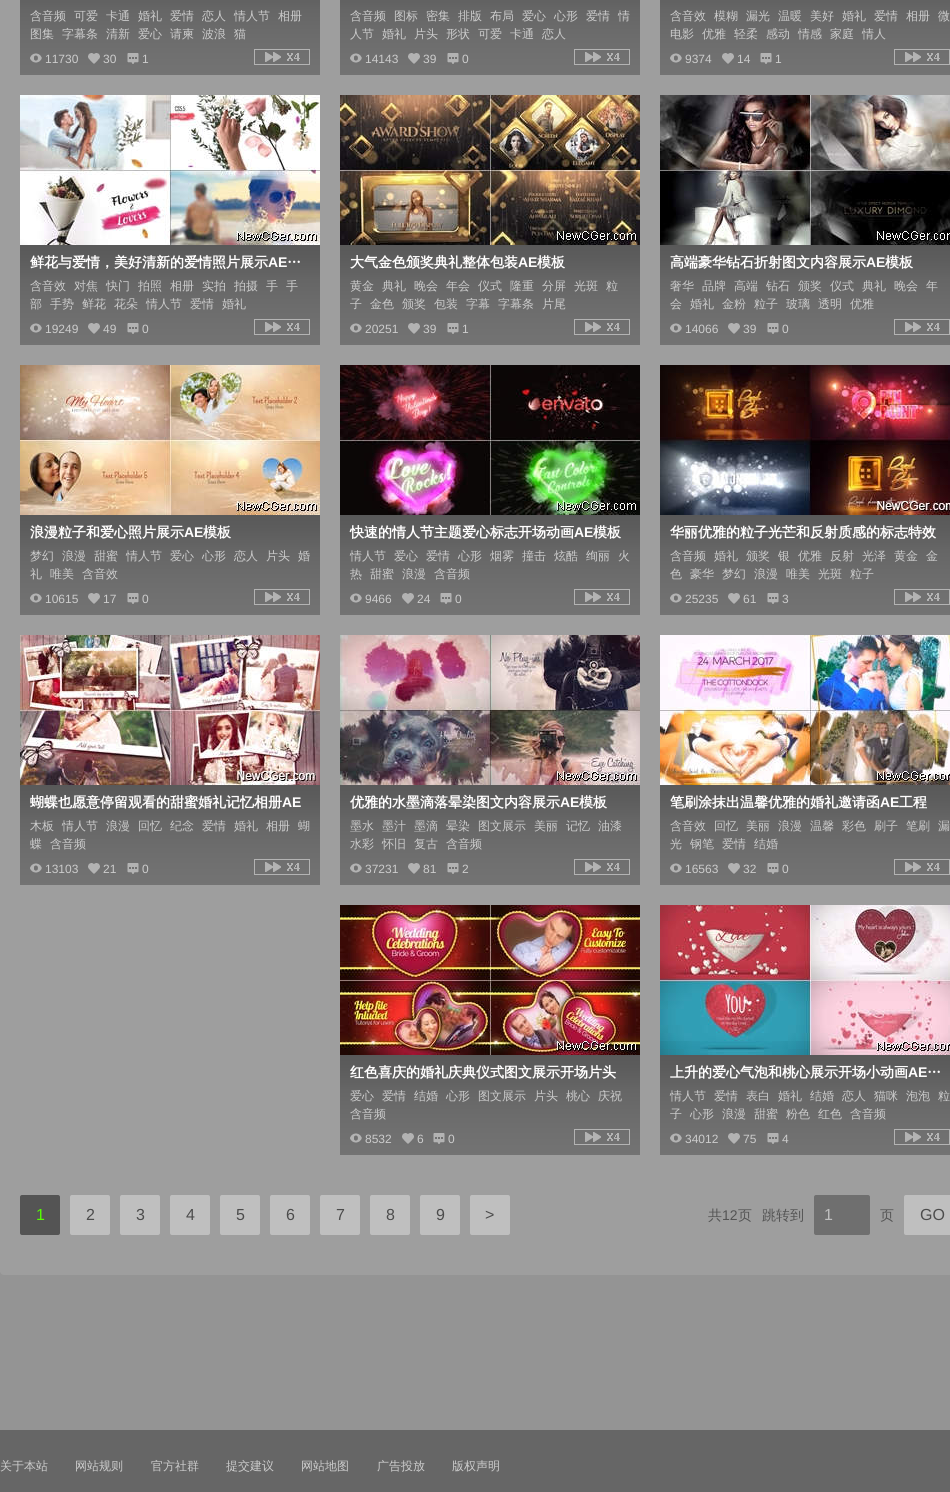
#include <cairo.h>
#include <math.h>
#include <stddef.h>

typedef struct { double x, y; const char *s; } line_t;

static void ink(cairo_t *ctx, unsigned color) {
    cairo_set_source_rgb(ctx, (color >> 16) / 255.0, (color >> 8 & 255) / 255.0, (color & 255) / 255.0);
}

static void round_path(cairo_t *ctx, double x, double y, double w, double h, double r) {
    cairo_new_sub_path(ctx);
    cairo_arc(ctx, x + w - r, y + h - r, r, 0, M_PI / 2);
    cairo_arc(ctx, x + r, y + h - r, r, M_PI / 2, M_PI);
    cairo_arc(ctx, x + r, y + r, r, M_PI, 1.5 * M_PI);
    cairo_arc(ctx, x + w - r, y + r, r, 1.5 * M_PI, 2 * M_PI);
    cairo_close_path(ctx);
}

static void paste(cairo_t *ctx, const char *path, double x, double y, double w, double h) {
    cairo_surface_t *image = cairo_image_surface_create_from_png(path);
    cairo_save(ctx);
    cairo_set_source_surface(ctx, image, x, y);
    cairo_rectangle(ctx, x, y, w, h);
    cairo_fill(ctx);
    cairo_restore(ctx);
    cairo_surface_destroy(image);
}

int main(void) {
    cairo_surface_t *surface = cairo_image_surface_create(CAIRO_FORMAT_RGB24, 950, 1492);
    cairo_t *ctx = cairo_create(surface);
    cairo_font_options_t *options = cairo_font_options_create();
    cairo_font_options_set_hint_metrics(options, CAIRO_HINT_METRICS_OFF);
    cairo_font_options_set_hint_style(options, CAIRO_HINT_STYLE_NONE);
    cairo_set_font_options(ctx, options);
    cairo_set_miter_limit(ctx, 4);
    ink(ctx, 0x949494);
    cairo_paint(ctx);
    ink(ctx, 0x9E9E9E);
    round_path(ctx, 0, -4, 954, 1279, 4);
    cairo_fill(ctx);
    paste(ctx, "media/1.png", 20, 0, 300, 75);
    cairo_select_font_face(ctx, "WenQuanYi Zen Hei Medium", CAIRO_FONT_SLANT_NORMAL, CAIRO_FONT_WEIGHT_NORMAL);
    cairo_set_font_size(ctx, 12);
    ink(ctx, 0xCCCCCC);
    {
        static const line_t items[] = {
            {30, 20, "含音频"},
            {74, 20, "可爱"},
            {106, 20, "卡通"},
            {138, 20, "婚礼"},
            {170, 20, "爱情"},
            {202, 20, "恋人"},
            {234, 20, "情人节"},
            {278, 20, "相册"},
            {30, 38, "图集"},
            {62, 38, "字幕条"},
            {106, 38, "清新"},
            {138, 38, "爱心"},
            {170, 38, "请柬"},
            {202, 38, "波浪"},
            {234, 38, "猫"},
        };
        for (size_t i = 0; i < sizeof items / sizeof *items; i++) {
            cairo_move_to(ctx, items[i].x, items[i].y);
            cairo_show_text(ctx, items[i].s);
        }
    }
    paste(ctx, "media/2.png", 30, 53, 12, 10);
    cairo_select_font_face(ctx, "Liberation Sans", CAIRO_FONT_SLANT_NORMAL, CAIRO_FONT_WEIGHT_NORMAL);
    cairo_move_to(ctx, 45, 63);
    cairo_show_text(ctx, "11730");
    paste(ctx, "media/3.png", 88, 53, 12, 11);
    cairo_move_to(ctx, 103, 63);
    cairo_show_text(ctx, "30");
    paste(ctx, "media/4.png", 127, 53, 12, 11);
    cairo_move_to(ctx, 142, 63);
    cairo_show_text(ctx, "1");
    paste(ctx, "media/5.png", 254, 49, 56, 16);
    paste(ctx, "media/1.png", 340, 0, 300, 75);
    cairo_select_font_face(ctx, "WenQuanYi Zen Hei Medium", CAIRO_FONT_SLANT_NORMAL, CAIRO_FONT_WEIGHT_NORMAL);
    {
        static const line_t items[] = {
            {350, 20, "含音频"},
            {394, 20, "图标"},
            {426, 20, "密集"},
            {458, 20, "排版"},
            {490, 20, "布局"},
            {522, 20, "爱心"},
            {554, 20, "心形"},
            {586, 20, "爱情"},
            {618, 20, "情"},
            {350, 38, "人节"},
            {382, 38, "婚礼"},
            {414, 38, "片头"},
            {446, 38, "形状"},
            {478, 38, "可爱"},
            {510, 38, "卡通"},
            {542, 38, "恋人"},
        };
        for (size_t i = 0; i < sizeof items / sizeof *items; i++) {
            cairo_move_to(ctx, items[i].x, items[i].y);
            cairo_show_text(ctx, items[i].s);
        }
    }
    paste(ctx, "media/2.png", 350, 53, 12, 10);
    cairo_select_font_face(ctx, "Liberation Sans", CAIRO_FONT_SLANT_NORMAL, CAIRO_FONT_WEIGHT_NORMAL);
    cairo_move_to(ctx, 365, 63);
    cairo_show_text(ctx, "14143");
    paste(ctx, "media/3.png", 408, 53, 12, 11);
    cairo_move_to(ctx, 423, 63);
    cairo_show_text(ctx, "39");
    paste(ctx, "media/4.png", 447, 53, 12, 11);
    cairo_move_to(ctx, 462, 63);
    cairo_show_text(ctx, "0");
    paste(ctx, "media/5.png", 574, 49, 56, 16);
    paste(ctx, "media/6.png", 660, 0, 290, 75);
    cairo_select_font_face(ctx, "WenQuanYi Zen Hei Medium", CAIRO_FONT_SLANT_NORMAL, CAIRO_FONT_WEIGHT_NORMAL);
    {
        static const line_t items[] = {
            {670, 20, "含音效"},
            {714, 20, "模糊"},
            {746, 20, "漏光"},
            {778, 20, "温暖"},
            {810, 20, "美好"},
            {842, 20, "婚礼"},
            {874, 20, "爱情"},
            {906, 20, "相册"},
            {938, 20, "微"},
            {670, 38, "电影"},
            {702, 38, "优雅"},
            {734, 38, "轻柔"},
            {766, 38, "感动"},
            {798, 38, "情感"},
            {830, 38, "家庭"},
            {862, 38, "情人"},
        };
        for (size_t i = 0; i < sizeof items / sizeof *items; i++) {
            cairo_move_to(ctx, items[i].x, items[i].y);
            cairo_show_text(ctx, items[i].s);
        }
    }
    paste(ctx, "media/2.png", 670, 53, 12, 10);
    cairo_select_font_face(ctx, "Liberation Sans", CAIRO_FONT_SLANT_NORMAL, CAIRO_FONT_WEIGHT_NORMAL);
    cairo_move_to(ctx, 685, 63);
    cairo_show_text(ctx, "9374");
    paste(ctx, "media/3.png", 722, 53, 12, 11);
    cairo_move_to(ctx, 737, 63);
    cairo_show_text(ctx, "14");
    paste(ctx, "media/4.png", 760, 53, 12, 11);
    cairo_move_to(ctx, 775, 63);
    cairo_show_text(ctx, "1");
    paste(ctx, "media/5.png", 894, 49, 56, 16);
    paste(ctx, "media/7.png", 20, 95, 300, 150);
    paste(ctx, "media/8.png", 20, 245, 300, 100);
    cairo_select_font_face(ctx, "WenQuanYi Zen Hei", CAIRO_FONT_SLANT_NORMAL, CAIRO_FONT_WEIGHT_BOLD);
    cairo_set_font_size(ctx, 14);
    ink(ctx, 0xFFFEFE);
    cairo_move_to(ctx, 30, 267);
    cairo_show_text(ctx, "鲜花与爱情，美好清新的爱情照片展示");
    cairo_select_font_face(ctx, "Liberation Sans", CAIRO_FONT_SLANT_NORMAL, CAIRO_FONT_WEIGHT_BOLD);
    cairo_move_to(ctx, 268, 267);
    cairo_show_text(ctx, "AE");
    cairo_select_font_face(ctx, "WenQuanYi Zen Hei", CAIRO_FONT_SLANT_NORMAL, CAIRO_FONT_WEIGHT_BOLD);
    cairo_move_to(ctx, 287, 267);
    cairo_show_text(ctx, "…");
    cairo_select_font_face(ctx, "WenQuanYi Zen Hei Medium", CAIRO_FONT_SLANT_NORMAL, CAIRO_FONT_WEIGHT_NORMAL);
    cairo_set_font_size(ctx, 12);
    ink(ctx, 0xCCCCCC);
    {
        static const line_t items[] = {
            {30, 290, "含音效"},
            {74, 290, "对焦"},
            {106, 290, "快门"},
            {138, 290, "拍照"},
            {170, 290, "相册"},
            {202, 290, "实拍"},
            {234, 290, "拍摄"},
            {266, 290, "手"},
            {286, 290, "手"},
            {30, 308, "部"},
            {50, 308, "手势"},
            {82, 308, "鲜花"},
            {114, 308, "花朵"},
            {146, 308, "情人节"},
            {190, 308, "爱情"},
            {222, 308, "婚礼"},
        };
        for (size_t i = 0; i < sizeof items / sizeof *items; i++) {
            cairo_move_to(ctx, items[i].x, items[i].y);
            cairo_show_text(ctx, items[i].s);
        }
    }
    paste(ctx, "media/2.png", 30, 323, 12, 10);
    cairo_select_font_face(ctx, "Liberation Sans", CAIRO_FONT_SLANT_NORMAL, CAIRO_FONT_WEIGHT_NORMAL);
    cairo_move_to(ctx, 45, 333);
    cairo_show_text(ctx, "19249");
    paste(ctx, "media/3.png", 88, 323, 12, 11);
    cairo_move_to(ctx, 103, 333);
    cairo_show_text(ctx, "49");
    paste(ctx, "media/4.png", 127, 323, 12, 11);
    cairo_move_to(ctx, 142, 333);
    cairo_show_text(ctx, "0");
    paste(ctx, "media/5.png", 254, 319, 56, 16);
    paste(ctx, "media/9.png", 340, 95, 300, 150);
    paste(ctx, "media/8.png", 340, 245, 300, 100);
    cairo_select_font_face(ctx, "WenQuanYi Zen Hei", CAIRO_FONT_SLANT_NORMAL, CAIRO_FONT_WEIGHT_BOLD);
    cairo_set_font_size(ctx, 14);
    ink(ctx, 0xFFFEFE);
    cairo_move_to(ctx, 350, 267);
    cairo_show_text(ctx, "大气金色颁奖典礼整体包装");
    cairo_select_font_face(ctx, "Liberation Sans", CAIRO_FONT_SLANT_NORMAL, CAIRO_FONT_WEIGHT_BOLD);
    cairo_move_to(ctx, 518, 267);
    cairo_show_text(ctx, "AE");
    cairo_select_font_face(ctx, "WenQuanYi Zen Hei", CAIRO_FONT_SLANT_NORMAL, CAIRO_FONT_WEIGHT_BOLD);
    cairo_move_to(ctx, 537, 267);
    cairo_show_text(ctx, "模板");
    cairo_select_font_face(ctx, "WenQuanYi Zen Hei Medium", CAIRO_FONT_SLANT_NORMAL, CAIRO_FONT_WEIGHT_NORMAL);
    cairo_set_font_size(ctx, 12);
    ink(ctx, 0xCCCCCC);
    {
        static const line_t items[] = {
            {350, 290, "黄金"},
            {382, 290, "典礼"},
            {414, 290, "晚会"},
            {446, 290, "年会"},
            {478, 290, "仪式"},
            {510, 290, "隆重"},
            {542, 290, "分屏"},
            {574, 290, "光斑"},
            {606, 290, "粒"},
            {350, 308, "子"},
            {370, 308, "金色"},
            {402, 308, "颁奖"},
            {434, 308, "包装"},
            {466, 308, "字幕"},
            {498, 308, "字幕条"},
            {542, 308, "片尾"},
        };
        for (size_t i = 0; i < sizeof items / sizeof *items; i++) {
            cairo_move_to(ctx, items[i].x, items[i].y);
            cairo_show_text(ctx, items[i].s);
        }
    }
    paste(ctx, "media/2.png", 350, 323, 12, 10);
    cairo_select_font_face(ctx, "Liberation Sans", CAIRO_FONT_SLANT_NORMAL, CAIRO_FONT_WEIGHT_NORMAL);
    cairo_move_to(ctx, 365, 333);
    cairo_show_text(ctx, "20251");
    paste(ctx, "media/3.png", 408, 323, 12, 11);
    cairo_move_to(ctx, 423, 333);
    cairo_show_text(ctx, "39");
    paste(ctx, "media/4.png", 447, 323, 12, 11);
    cairo_move_to(ctx, 462, 333);
    cairo_show_text(ctx, "1");
    paste(ctx, "media/5.png", 574, 319, 56, 16);
    paste(ctx, "media/10.png", 660, 95, 290, 150);
    paste(ctx, "media/11.png", 660, 245, 290, 100);
    cairo_select_font_face(ctx, "WenQuanYi Zen Hei", CAIRO_FONT_SLANT_NORMAL, CAIRO_FONT_WEIGHT_BOLD);
    cairo_set_font_size(ctx, 14);
    ink(ctx, 0xFFFEFE);
    cairo_move_to(ctx, 670, 267);
    cairo_show_text(ctx, "高端豪华钻石折射图文内容展示");
    cairo_select_font_face(ctx, "Liberation Sans", CAIRO_FONT_SLANT_NORMAL, CAIRO_FONT_WEIGHT_BOLD);
    cairo_move_to(ctx, 866, 267);
    cairo_show_text(ctx, "AE");
    cairo_select_font_face(ctx, "WenQuanYi Zen Hei", CAIRO_FONT_SLANT_NORMAL, CAIRO_FONT_WEIGHT_BOLD);
    cairo_move_to(ctx, 885, 267);
    cairo_show_text(ctx, "模板");
    cairo_select_font_face(ctx, "WenQuanYi Zen Hei Medium", CAIRO_FONT_SLANT_NORMAL, CAIRO_FONT_WEIGHT_NORMAL);
    cairo_set_font_size(ctx, 12);
    ink(ctx, 0xCCCCCC);
    {
        static const line_t items[] = {
            {670, 290, "奢华"},
            {702, 290, "品牌"},
            {734, 290, "高端"},
            {766, 290, "钻石"},
            {798, 290, "颁奖"},
            {830, 290, "仪式"},
            {862, 290, "典礼"},
            {894, 290, "晚会"},
            {926, 290, "年"},
            {670, 308, "会"},
            {690, 308, "婚礼"},
            {722, 308, "金粉"},
            {754, 308, "粒子"},
            {786, 308, "玻璃"},
            {818, 308, "透明"},
            {850, 308, "优雅"},
        };
        for (size_t i = 0; i < sizeof items / sizeof *items; i++) {
            cairo_move_to(ctx, items[i].x, items[i].y);
            cairo_show_text(ctx, items[i].s);
        }
    }
    paste(ctx, "media/2.png", 670, 323, 12, 10);
    cairo_select_font_face(ctx, "Liberation Sans", CAIRO_FONT_SLANT_NORMAL, CAIRO_FONT_WEIGHT_NORMAL);
    cairo_move_to(ctx, 685, 333);
    cairo_show_text(ctx, "14066");
    paste(ctx, "media/3.png", 728, 323, 12, 11);
    cairo_move_to(ctx, 743, 333);
    cairo_show_text(ctx, "39");
    paste(ctx, "media/4.png", 767, 323, 12, 11);
    cairo_move_to(ctx, 782, 333);
    cairo_show_text(ctx, "0");
    paste(ctx, "media/5.png", 894, 319, 56, 16);
    paste(ctx, "media/12.png", 20, 365, 300, 150);
    paste(ctx, "media/8.png", 20, 515, 300, 100);
    cairo_select_font_face(ctx, "WenQuanYi Zen Hei", CAIRO_FONT_SLANT_NORMAL, CAIRO_FONT_WEIGHT_BOLD);
    cairo_set_font_size(ctx, 14);
    ink(ctx, 0xFFFEFE);
    cairo_move_to(ctx, 30, 537);
    cairo_show_text(ctx, "浪漫粒子和爱心照片展示");
    cairo_select_font_face(ctx, "Liberation Sans", CAIRO_FONT_SLANT_NORMAL, CAIRO_FONT_WEIGHT_BOLD);
    cairo_move_to(ctx, 184, 537);
    cairo_show_text(ctx, "AE");
    cairo_select_font_face(ctx, "WenQuanYi Zen Hei", CAIRO_FONT_SLANT_NORMAL, CAIRO_FONT_WEIGHT_BOLD);
    cairo_move_to(ctx, 203, 537);
    cairo_show_text(ctx, "模板");
    cairo_select_font_face(ctx, "WenQuanYi Zen Hei Medium", CAIRO_FONT_SLANT_NORMAL, CAIRO_FONT_WEIGHT_NORMAL);
    cairo_set_font_size(ctx, 12);
    ink(ctx, 0xCCCCCC);
    {
        static const line_t items[] = {
            {30, 560, "梦幻"},
            {62, 560, "浪漫"},
            {94, 560, "甜蜜"},
            {126, 560, "情人节"},
            {170, 560, "爱心"},
            {202, 560, "心形"},
            {234, 560, "恋人"},
            {266, 560, "片头"},
            {298, 560, "婚"},
            {30, 578, "礼"},
            {50, 578, "唯美"},
            {82, 578, "含音效"},
        };
        for (size_t i = 0; i < sizeof items / sizeof *items; i++) {
            cairo_move_to(ctx, items[i].x, items[i].y);
            cairo_show_text(ctx, items[i].s);
        }
    }
    paste(ctx, "media/2.png", 30, 593, 12, 10);
    cairo_select_font_face(ctx, "Liberation Sans", CAIRO_FONT_SLANT_NORMAL, CAIRO_FONT_WEIGHT_NORMAL);
    cairo_move_to(ctx, 45, 603);
    cairo_show_text(ctx, "10615");
    paste(ctx, "media/3.png", 88, 593, 12, 11);
    cairo_move_to(ctx, 103, 603);
    cairo_show_text(ctx, "17");
    paste(ctx, "media/4.png", 127, 593, 12, 11);
    cairo_move_to(ctx, 142, 603);
    cairo_show_text(ctx, "0");
    paste(ctx, "media/5.png", 254, 589, 56, 16);
    paste(ctx, "media/13.png", 340, 365, 300, 150);
    paste(ctx, "media/8.png", 340, 515, 300, 100);
    cairo_select_font_face(ctx, "WenQuanYi Zen Hei", CAIRO_FONT_SLANT_NORMAL, CAIRO_FONT_WEIGHT_BOLD);
    cairo_set_font_size(ctx, 14);
    ink(ctx, 0xFFFEFE);
    cairo_move_to(ctx, 350, 537);
    cairo_show_text(ctx, "快速的情人节主题爱心标志开场动画");
    cairo_select_font_face(ctx, "Liberation Sans", CAIRO_FONT_SLANT_NORMAL, CAIRO_FONT_WEIGHT_BOLD);
    cairo_move_to(ctx, 574, 537);
    cairo_show_text(ctx, "AE");
    cairo_select_font_face(ctx, "WenQuanYi Zen Hei", CAIRO_FONT_SLANT_NORMAL, CAIRO_FONT_WEIGHT_BOLD);
    cairo_move_to(ctx, 593, 537);
    cairo_show_text(ctx, "模板");
    cairo_select_font_face(ctx, "WenQuanYi Zen Hei Medium", CAIRO_FONT_SLANT_NORMAL, CAIRO_FONT_WEIGHT_NORMAL);
    cairo_set_font_size(ctx, 12);
    ink(ctx, 0xCCCCCC);
    {
        static const line_t items[] = {
            {350, 560, "情人节"},
            {394, 560, "爱心"},
            {426, 560, "爱情"},
            {458, 560, "心形"},
            {490, 560, "烟雾"},
            {522, 560, "撞击"},
            {554, 560, "炫酷"},
            {586, 560, "绚丽"},
            {618, 560, "火"},
            {350, 578, "热"},
            {370, 578, "甜蜜"},
            {402, 578, "浪漫"},
            {434, 578, "含音频"},
        };
        for (size_t i = 0; i < sizeof items / sizeof *items; i++) {
            cairo_move_to(ctx, items[i].x, items[i].y);
            cairo_show_text(ctx, items[i].s);
        }
    }
    paste(ctx, "media/2.png", 350, 593, 12, 10);
    cairo_select_font_face(ctx, "Liberation Sans", CAIRO_FONT_SLANT_NORMAL, CAIRO_FONT_WEIGHT_NORMAL);
    cairo_move_to(ctx, 365, 603);
    cairo_show_text(ctx, "9466");
    paste(ctx, "media/3.png", 402, 593, 12, 11);
    cairo_move_to(ctx, 417, 603);
    cairo_show_text(ctx, "24");
    paste(ctx, "media/4.png", 440, 593, 12, 11);
    cairo_move_to(ctx, 455, 603);
    cairo_show_text(ctx, "0");
    paste(ctx, "media/5.png", 574, 589, 56, 16);
    paste(ctx, "media/14.png", 660, 365, 290, 150);
    paste(ctx, "media/11.png", 660, 515, 290, 100);
    cairo_select_font_face(ctx, "WenQuanYi Zen Hei", CAIRO_FONT_SLANT_NORMAL, CAIRO_FONT_WEIGHT_BOLD);
    cairo_set_font_size(ctx, 14);
    ink(ctx, 0xFFFEFE);
    cairo_move_to(ctx, 670, 537);
    cairo_show_text(ctx, "华丽优雅的粒子光芒和反射质感的标志特效");
    cairo_select_font_face(ctx, "WenQuanYi Zen Hei Medium", CAIRO_FONT_SLANT_NORMAL, CAIRO_FONT_WEIGHT_NORMAL);
    cairo_set_font_size(ctx, 12);
    ink(ctx, 0xCCCCCC);
    {
        static const line_t items[] = {
            {670, 560, "含音频"},
            {714, 560, "婚礼"},
            {746, 560, "颁奖"},
            {778, 560, "银"},
            {798, 560, "优雅"},
            {830, 560, "反射"},
            {862, 560, "光泽"},
            {894, 560, "黄金"},
            {926, 560, "金"},
            {670, 578, "色"},
            {690, 578, "豪华"},
            {722, 578, "梦幻"},
            {754, 578, "浪漫"},
            {786, 578, "唯美"},
            {818, 578, "光斑"},
            {850, 578, "粒子"},
        };
        for (size_t i = 0; i < sizeof items / sizeof *items; i++) {
            cairo_move_to(ctx, items[i].x, items[i].y);
            cairo_show_text(ctx, items[i].s);
        }
    }
    paste(ctx, "media/2.png", 670, 593, 12, 10);
    cairo_select_font_face(ctx, "Liberation Sans", CAIRO_FONT_SLANT_NORMAL, CAIRO_FONT_WEIGHT_NORMAL);
    cairo_move_to(ctx, 685, 603);
    cairo_show_text(ctx, "25235");
    paste(ctx, "media/3.png", 728, 593, 12, 11);
    cairo_move_to(ctx, 743, 603);
    cairo_show_text(ctx, "61");
    paste(ctx, "media/4.png", 767, 593, 12, 11);
    cairo_move_to(ctx, 782, 603);
    cairo_show_text(ctx, "3");
    paste(ctx, "media/5.png", 894, 589, 56, 16);
    paste(ctx, "media/15.png", 20, 635, 300, 150);
    paste(ctx, "media/8.png", 20, 785, 300, 100);
    cairo_select_font_face(ctx, "WenQuanYi Zen Hei", CAIRO_FONT_SLANT_NORMAL, CAIRO_FONT_WEIGHT_BOLD);
    cairo_set_font_size(ctx, 14);
    ink(ctx, 0xFFFEFE);
    cairo_move_to(ctx, 30, 807);
    cairo_show_text(ctx, "蝴蝶也愿意停留观看的甜蜜婚礼记忆相册");
    cairo_select_font_face(ctx, "Liberation Sans", CAIRO_FONT_SLANT_NORMAL, CAIRO_FONT_WEIGHT_BOLD);
    cairo_move_to(ctx, 282, 807);
    cairo_show_text(ctx, "AE");
    cairo_select_font_face(ctx, "WenQuanYi Zen Hei Medium", CAIRO_FONT_SLANT_NORMAL, CAIRO_FONT_WEIGHT_NORMAL);
    cairo_set_font_size(ctx, 12);
    ink(ctx, 0xCCCCCC);
    {
        static const line_t items[] = {
            {30, 830, "木板"},
            {62, 830, "情人节"},
            {106, 830, "浪漫"},
            {138, 830, "回忆"},
            {170, 830, "纪念"},
            {202, 830, "爱情"},
            {234, 830, "婚礼"},
            {266, 830, "相册"},
            {298, 830, "蝴"},
            {30, 848, "蝶"},
            {50, 848, "含音频"},
        };
        for (size_t i = 0; i < sizeof items / sizeof *items; i++) {
            cairo_move_to(ctx, items[i].x, items[i].y);
            cairo_show_text(ctx, items[i].s);
        }
    }
    paste(ctx, "media/2.png", 30, 863, 12, 10);
    cairo_select_font_face(ctx, "Liberation Sans", CAIRO_FONT_SLANT_NORMAL, CAIRO_FONT_WEIGHT_NORMAL);
    cairo_move_to(ctx, 45, 873);
    cairo_show_text(ctx, "13103");
    paste(ctx, "media/3.png", 88, 863, 12, 11);
    cairo_move_to(ctx, 103, 873);
    cairo_show_text(ctx, "21");
    paste(ctx, "media/4.png", 127, 863, 12, 11);
    cairo_move_to(ctx, 142, 873);
    cairo_show_text(ctx, "0");
    paste(ctx, "media/5.png", 254, 859, 56, 16);
    paste(ctx, "media/16.png", 340, 635, 300, 150);
    paste(ctx, "media/8.png", 340, 785, 300, 100);
    cairo_select_font_face(ctx, "WenQuanYi Zen Hei", CAIRO_FONT_SLANT_NORMAL, CAIRO_FONT_WEIGHT_BOLD);
    cairo_set_font_size(ctx, 14);
    ink(ctx, 0xFFFEFE);
    cairo_move_to(ctx, 350, 807);
    cairo_show_text(ctx, "优雅的水墨滴落晕染图文内容展示");
    cairo_select_font_face(ctx, "Liberation Sans", CAIRO_FONT_SLANT_NORMAL, CAIRO_FONT_WEIGHT_BOLD);
    cairo_move_to(ctx, 560, 807);
    cairo_show_text(ctx, "AE");
    cairo_select_font_face(ctx, "WenQuanYi Zen Hei", CAIRO_FONT_SLANT_NORMAL, CAIRO_FONT_WEIGHT_BOLD);
    cairo_move_to(ctx, 579, 807);
    cairo_show_text(ctx, "模板");
    cairo_select_font_face(ctx, "WenQuanYi Zen Hei Medium", CAIRO_FONT_SLANT_NORMAL, CAIRO_FONT_WEIGHT_NORMAL);
    cairo_set_font_size(ctx, 12);
    ink(ctx, 0xCCCCCC);
    {
        static const line_t items[] = {
            {350, 830, "墨水"},
            {382, 830, "墨汁"},
            {414, 830, "墨滴"},
            {446, 830, "晕染"},
            {478, 830, "图文展示"},
            {534, 830, "美丽"},
            {566, 830, "记忆"},
            {598, 830, "油漆"},
            {350, 848, "水彩"},
            {382, 848, "怀旧"},
            {414, 848, "复古"},
            {446, 848, "含音频"},
        };
        for (size_t i = 0; i < sizeof items / sizeof *items; i++) {
            cairo_move_to(ctx, items[i].x, items[i].y);
            cairo_show_text(ctx, items[i].s);
        }
    }
    paste(ctx, "media/2.png", 350, 863, 12, 10);
    cairo_select_font_face(ctx, "Liberation Sans", CAIRO_FONT_SLANT_NORMAL, CAIRO_FONT_WEIGHT_NORMAL);
    cairo_move_to(ctx, 365, 873);
    cairo_show_text(ctx, "37231");
    paste(ctx, "media/3.png", 408, 863, 12, 11);
    cairo_move_to(ctx, 423, 873);
    cairo_show_text(ctx, "81");
    paste(ctx, "media/4.png", 447, 863, 12, 11);
    cairo_move_to(ctx, 462, 873);
    cairo_show_text(ctx, "2");
    paste(ctx, "media/5.png", 574, 859, 56, 16);
    paste(ctx, "media/17.png", 660, 635, 290, 150);
    paste(ctx, "media/11.png", 660, 785, 290, 100);
    cairo_select_font_face(ctx, "WenQuanYi Zen Hei", CAIRO_FONT_SLANT_NORMAL, CAIRO_FONT_WEIGHT_BOLD);
    cairo_set_font_size(ctx, 14);
    ink(ctx, 0xFFFEFE);
    cairo_move_to(ctx, 670, 807);
    cairo_show_text(ctx, "笔刷涂抹出温馨优雅的婚礼邀请函");
    cairo_select_font_face(ctx, "Liberation Sans", CAIRO_FONT_SLANT_NORMAL, CAIRO_FONT_WEIGHT_BOLD);
    cairo_move_to(ctx, 880, 807);
    cairo_show_text(ctx, "AE");
    cairo_select_font_face(ctx, "WenQuanYi Zen Hei", CAIRO_FONT_SLANT_NORMAL, CAIRO_FONT_WEIGHT_BOLD);
    cairo_move_to(ctx, 899, 807);
    cairo_show_text(ctx, "工程");
    cairo_select_font_face(ctx, "WenQuanYi Zen Hei Medium", CAIRO_FONT_SLANT_NORMAL, CAIRO_FONT_WEIGHT_NORMAL);
    cairo_set_font_size(ctx, 12);
    ink(ctx, 0xCCCCCC);
    {
        static const line_t items[] = {
            {670, 830, "含音效"},
            {714, 830, "回忆"},
            {746, 830, "美丽"},
            {778, 830, "浪漫"},
            {810, 830, "温馨"},
            {842, 830, "彩色"},
            {874, 830, "刷子"},
            {906, 830, "笔刷"},
            {938, 830, "漏"},
            {670, 848, "光"},
            {690, 848, "钢笔"},
            {722, 848, "爱情"},
            {754, 848, "结婚"},
        };
        for (size_t i = 0; i < sizeof items / sizeof *items; i++) {
            cairo_move_to(ctx, items[i].x, items[i].y);
            cairo_show_text(ctx, items[i].s);
        }
    }
    paste(ctx, "media/2.png", 670, 863, 12, 10);
    cairo_select_font_face(ctx, "Liberation Sans", CAIRO_FONT_SLANT_NORMAL, CAIRO_FONT_WEIGHT_NORMAL);
    cairo_move_to(ctx, 685, 873);
    cairo_show_text(ctx, "16563");
    paste(ctx, "media/3.png", 728, 863, 12, 11);
    cairo_move_to(ctx, 743, 873);
    cairo_show_text(ctx, "32");
    paste(ctx, "media/4.png", 767, 863, 12, 11);
    cairo_move_to(ctx, 782, 873);
    cairo_show_text(ctx, "0");
    paste(ctx, "media/5.png", 894, 859, 56, 16);
    paste(ctx, "media/18.png", 340, 905, 300, 150);
    paste(ctx, "media/8.png", 340, 1055, 300, 100);
    cairo_select_font_face(ctx, "WenQuanYi Zen Hei", CAIRO_FONT_SLANT_NORMAL, CAIRO_FONT_WEIGHT_BOLD);
    cairo_set_font_size(ctx, 14);
    ink(ctx, 0xFFFEFE);
    cairo_move_to(ctx, 350, 1077);
    cairo_show_text(ctx, "红色喜庆的婚礼庆典仪式图文展示开场片头");
    cairo_select_font_face(ctx, "WenQuanYi Zen Hei Medium", CAIRO_FONT_SLANT_NORMAL, CAIRO_FONT_WEIGHT_NORMAL);
    cairo_set_font_size(ctx, 12);
    ink(ctx, 0xCCCCCC);
    {
        static const line_t items[] = {
            {350, 1100, "爱心"},
            {382, 1100, "爱情"},
            {414, 1100, "结婚"},
            {446, 1100, "心形"},
            {478, 1100, "图文展示"},
            {534, 1100, "片头"},
            {566, 1100, "桃心"},
            {598, 1100, "庆祝"},
            {350, 1118, "含音频"},
        };
        for (size_t i = 0; i < sizeof items / sizeof *items; i++) {
            cairo_move_to(ctx, items[i].x, items[i].y);
            cairo_show_text(ctx, items[i].s);
        }
    }
    paste(ctx, "media/2.png", 350, 1133, 12, 10);
    cairo_select_font_face(ctx, "Liberation Sans", CAIRO_FONT_SLANT_NORMAL, CAIRO_FONT_WEIGHT_NORMAL);
    cairo_move_to(ctx, 365, 1143);
    cairo_show_text(ctx, "8532");
    paste(ctx, "media/3.png", 402, 1133, 12, 11);
    cairo_move_to(ctx, 417, 1143);
    cairo_show_text(ctx, "6");
    paste(ctx, "media/4.png", 433, 1133, 12, 11);
    cairo_move_to(ctx, 448, 1143);
    cairo_show_text(ctx, "0");
    paste(ctx, "media/5.png", 574, 1129, 56, 16);
    paste(ctx, "media/19.png", 660, 905, 290, 150);
    paste(ctx, "media/11.png", 660, 1055, 290, 100);
    cairo_select_font_face(ctx, "WenQuanYi Zen Hei", CAIRO_FONT_SLANT_NORMAL, CAIRO_FONT_WEIGHT_BOLD);
    cairo_set_font_size(ctx, 14);
    ink(ctx, 0xFFFEFE);
    cairo_move_to(ctx, 670, 1077);
    cairo_show_text(ctx, "上升的爱心气泡和桃心展示开场小动画");
    cairo_select_font_face(ctx, "Liberation Sans", CAIRO_FONT_SLANT_NORMAL, CAIRO_FONT_WEIGHT_BOLD);
    cairo_move_to(ctx, 908, 1077);
    cairo_show_text(ctx, "AE");
    cairo_select_font_face(ctx, "WenQuanYi Zen Hei", CAIRO_FONT_SLANT_NORMAL, CAIRO_FONT_WEIGHT_BOLD);
    cairo_move_to(ctx, 927, 1077);
    cairo_show_text(ctx, "…");
    cairo_select_font_face(ctx, "WenQuanYi Zen Hei Medium", CAIRO_FONT_SLANT_NORMAL, CAIRO_FONT_WEIGHT_NORMAL);
    cairo_set_font_size(ctx, 12);
    ink(ctx, 0xCCCCCC);
    {
        static const line_t items[] = {
            {670, 1100, "情人节"},
            {714, 1100, "爱情"},
            {746, 1100, "表白"},
            {778, 1100, "婚礼"},
            {810, 1100, "结婚"},
            {842, 1100, "恋人"},
            {874, 1100, "猫咪"},
            {906, 1100, "泡泡"},
            {938, 1100, "粒"},
            {670, 1118, "子"},
            {690, 1118, "心形"},
            {722, 1118, "浪漫"},
            {754, 1118, "甜蜜"},
            {786, 1118, "粉色"},
            {818, 1118, "红色"},
            {850, 1118, "含音频"},
        };
        for (size_t i = 0; i < sizeof items / sizeof *items; i++) {
            cairo_move_to(ctx, items[i].x, items[i].y);
            cairo_show_text(ctx, items[i].s);
        }
    }
    paste(ctx, "media/2.png", 670, 1133, 12, 10);
    cairo_select_font_face(ctx, "Liberation Sans", CAIRO_FONT_SLANT_NORMAL, CAIRO_FONT_WEIGHT_NORMAL);
    cairo_move_to(ctx, 685, 1143);
    cairo_show_text(ctx, "34012");
    paste(ctx, "media/3.png", 728, 1133, 12, 11);
    cairo_move_to(ctx, 743, 1143);
    cairo_show_text(ctx, "75");
    paste(ctx, "media/4.png", 767, 1133, 12, 11);
    cairo_move_to(ctx, 782, 1143);
    cairo_show_text(ctx, "4");
    paste(ctx, "media/5.png", 894, 1129, 56, 16);
    ink(ctx, 0x545454);
    round_path(ctx, 20, 1195, 40, 40, 2);
    cairo_fill(ctx);
    cairo_set_font_size(ctx, 16);
    ink(ctx, 0x55FF00);
    cairo_move_to(ctx, 36, 1220);
    cairo_show_text(ctx, "1");
    ink(ctx, 0xBFBFBF);
    round_path(ctx, 70, 1195, 40, 40, 2);
    cairo_fill(ctx);
    ink(ctx, 0x4C4C4C);
    cairo_move_to(ctx, 86, 1220);
    cairo_show_text(ctx, "2");
    ink(ctx, 0xBFBFBF);
    round_path(ctx, 120, 1195, 40, 40, 2);
    cairo_fill(ctx);
    ink(ctx, 0x4C4C4C);
    cairo_move_to(ctx, 136, 1220);
    cairo_show_text(ctx, "3");
    ink(ctx, 0xBFBFBF);
    round_path(ctx, 170, 1195, 40, 40, 2);
    cairo_fill(ctx);
    ink(ctx, 0x4C4C4C);
    cairo_move_to(ctx, 186, 1220);
    cairo_show_text(ctx, "4");
    ink(ctx, 0xBFBFBF);
    round_path(ctx, 220, 1195, 40, 40, 2);
    cairo_fill(ctx);
    ink(ctx, 0x4C4C4C);
    cairo_move_to(ctx, 236, 1220);
    cairo_show_text(ctx, "5");
    ink(ctx, 0xBFBFBF);
    round_path(ctx, 270, 1195, 40, 40, 2);
    cairo_fill(ctx);
    ink(ctx, 0x4C4C4C);
    cairo_move_to(ctx, 286, 1220);
    cairo_show_text(ctx, "6");
    ink(ctx, 0xBFBFBF);
    round_path(ctx, 320, 1195, 40, 40, 2);
    cairo_fill(ctx);
    ink(ctx, 0x4C4C4C);
    cairo_move_to(ctx, 336, 1220);
    cairo_show_text(ctx, "7");
    ink(ctx, 0xBFBFBF);
    round_path(ctx, 370, 1195, 40, 40, 2);
    cairo_fill(ctx);
    ink(ctx, 0x4C4C4C);
    cairo_move_to(ctx, 386, 1220);
    cairo_show_text(ctx, "8");
    ink(ctx, 0xBFBFBF);
    round_path(ctx, 420, 1195, 40, 40, 2);
    cairo_fill(ctx);
    ink(ctx, 0x4C4C4C);
    cairo_move_to(ctx, 436, 1220);
    cairo_show_text(ctx, "9");
    ink(ctx, 0xBFBFBF);
    round_path(ctx, 470, 1195, 40, 40, 2);
    cairo_fill(ctx);
    ink(ctx, 0x4C4C4C);
    cairo_move_to(ctx, 485, 1220);
    cairo_show_text(ctx, ">");
    cairo_select_font_face(ctx, "WenQuanYi Zen Hei Medium", CAIRO_FONT_SLANT_NORMAL, CAIRO_FONT_WEIGHT_NORMAL);
    cairo_set_font_size(ctx, 14);
    ink(ctx, 0x545454);
    cairo_move_to(ctx, 708, 1220);
    cairo_show_text(ctx, "共");
    cairo_select_font_face(ctx, "Liberation Sans", CAIRO_FONT_SLANT_NORMAL, CAIRO_FONT_WEIGHT_NORMAL);
    cairo_move_to(ctx, 722, 1220);
    cairo_show_text(ctx, "12");
    cairo_select_font_face(ctx, "WenQuanYi Zen Hei Medium", CAIRO_FONT_SLANT_NORMAL, CAIRO_FONT_WEIGHT_NORMAL);
    cairo_move_to(ctx, 738, 1220);
    cairo_show_text(ctx, "页");
    cairo_move_to(ctx, 762, 1220);
    cairo_show_text(ctx, "跳转到");
    ink(ctx, 0x6F6F6F);
    round_path(ctx, 814, 1195, 56, 40, 2);
    cairo_fill(ctx);
    cairo_select_font_face(ctx, "Liberation Sans", CAIRO_FONT_SLANT_NORMAL, CAIRO_FONT_WEIGHT_NORMAL);
    cairo_set_font_size(ctx, 16);
    ink(ctx, 0xBFBFBF);
    cairo_move_to(ctx, 824, 1220);
    cairo_show_text(ctx, "1");
    cairo_select_font_face(ctx, "WenQuanYi Zen Hei Medium", CAIRO_FONT_SLANT_NORMAL, CAIRO_FONT_WEIGHT_NORMAL);
    cairo_set_font_size(ctx, 14);
    ink(ctx, 0x545454);
    cairo_move_to(ctx, 880, 1220);
    cairo_show_text(ctx, "页");
    ink(ctx, 0xBFBFBF);
    round_path(ctx, 904, 1195, 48, 40, 2);
    cairo_fill(ctx);
    cairo_select_font_face(ctx, "Liberation Sans", CAIRO_FONT_SLANT_NORMAL, CAIRO_FONT_WEIGHT_NORMAL);
    cairo_set_font_size(ctx, 16);
    ink(ctx, 0x4C4C4C);
    cairo_move_to(ctx, 920, 1220);
    cairo_show_text(ctx, "GO");
    ink(ctx, 0x666666);
    cairo_rectangle(ctx, 0, 1430, 950, 62);
    cairo_fill(ctx);
    cairo_select_font_face(ctx, "WenQuanYi Zen Hei Medium", CAIRO_FONT_SLANT_NORMAL, CAIRO_FONT_WEIGHT_NORMAL);
    cairo_set_font_size(ctx, 12);
    ink(ctx, 0xCCCCCC);
    {
        static const line_t items[] = {
            {0, 1470, "关于本站"},
            {75, 1470, "网站规则"},
            {151, 1470, "官方社群"},
            {226, 1470, "提交建议"},
            {301, 1470, "网站地图"},
            {377, 1470, "广告投放"},
            {452, 1470, "版权声明"},
        };
        for (size_t i = 0; i < sizeof items / sizeof *items; i++) {
            cairo_move_to(ctx, items[i].x, items[i].y);
            cairo_show_text(ctx, items[i].s);
        }
    }
    cairo_surface_write_to_png(surface, "image.png");
    cairo_font_options_destroy(options);
    cairo_destroy(ctx);
    cairo_surface_destroy(surface);
    return 0;
}
